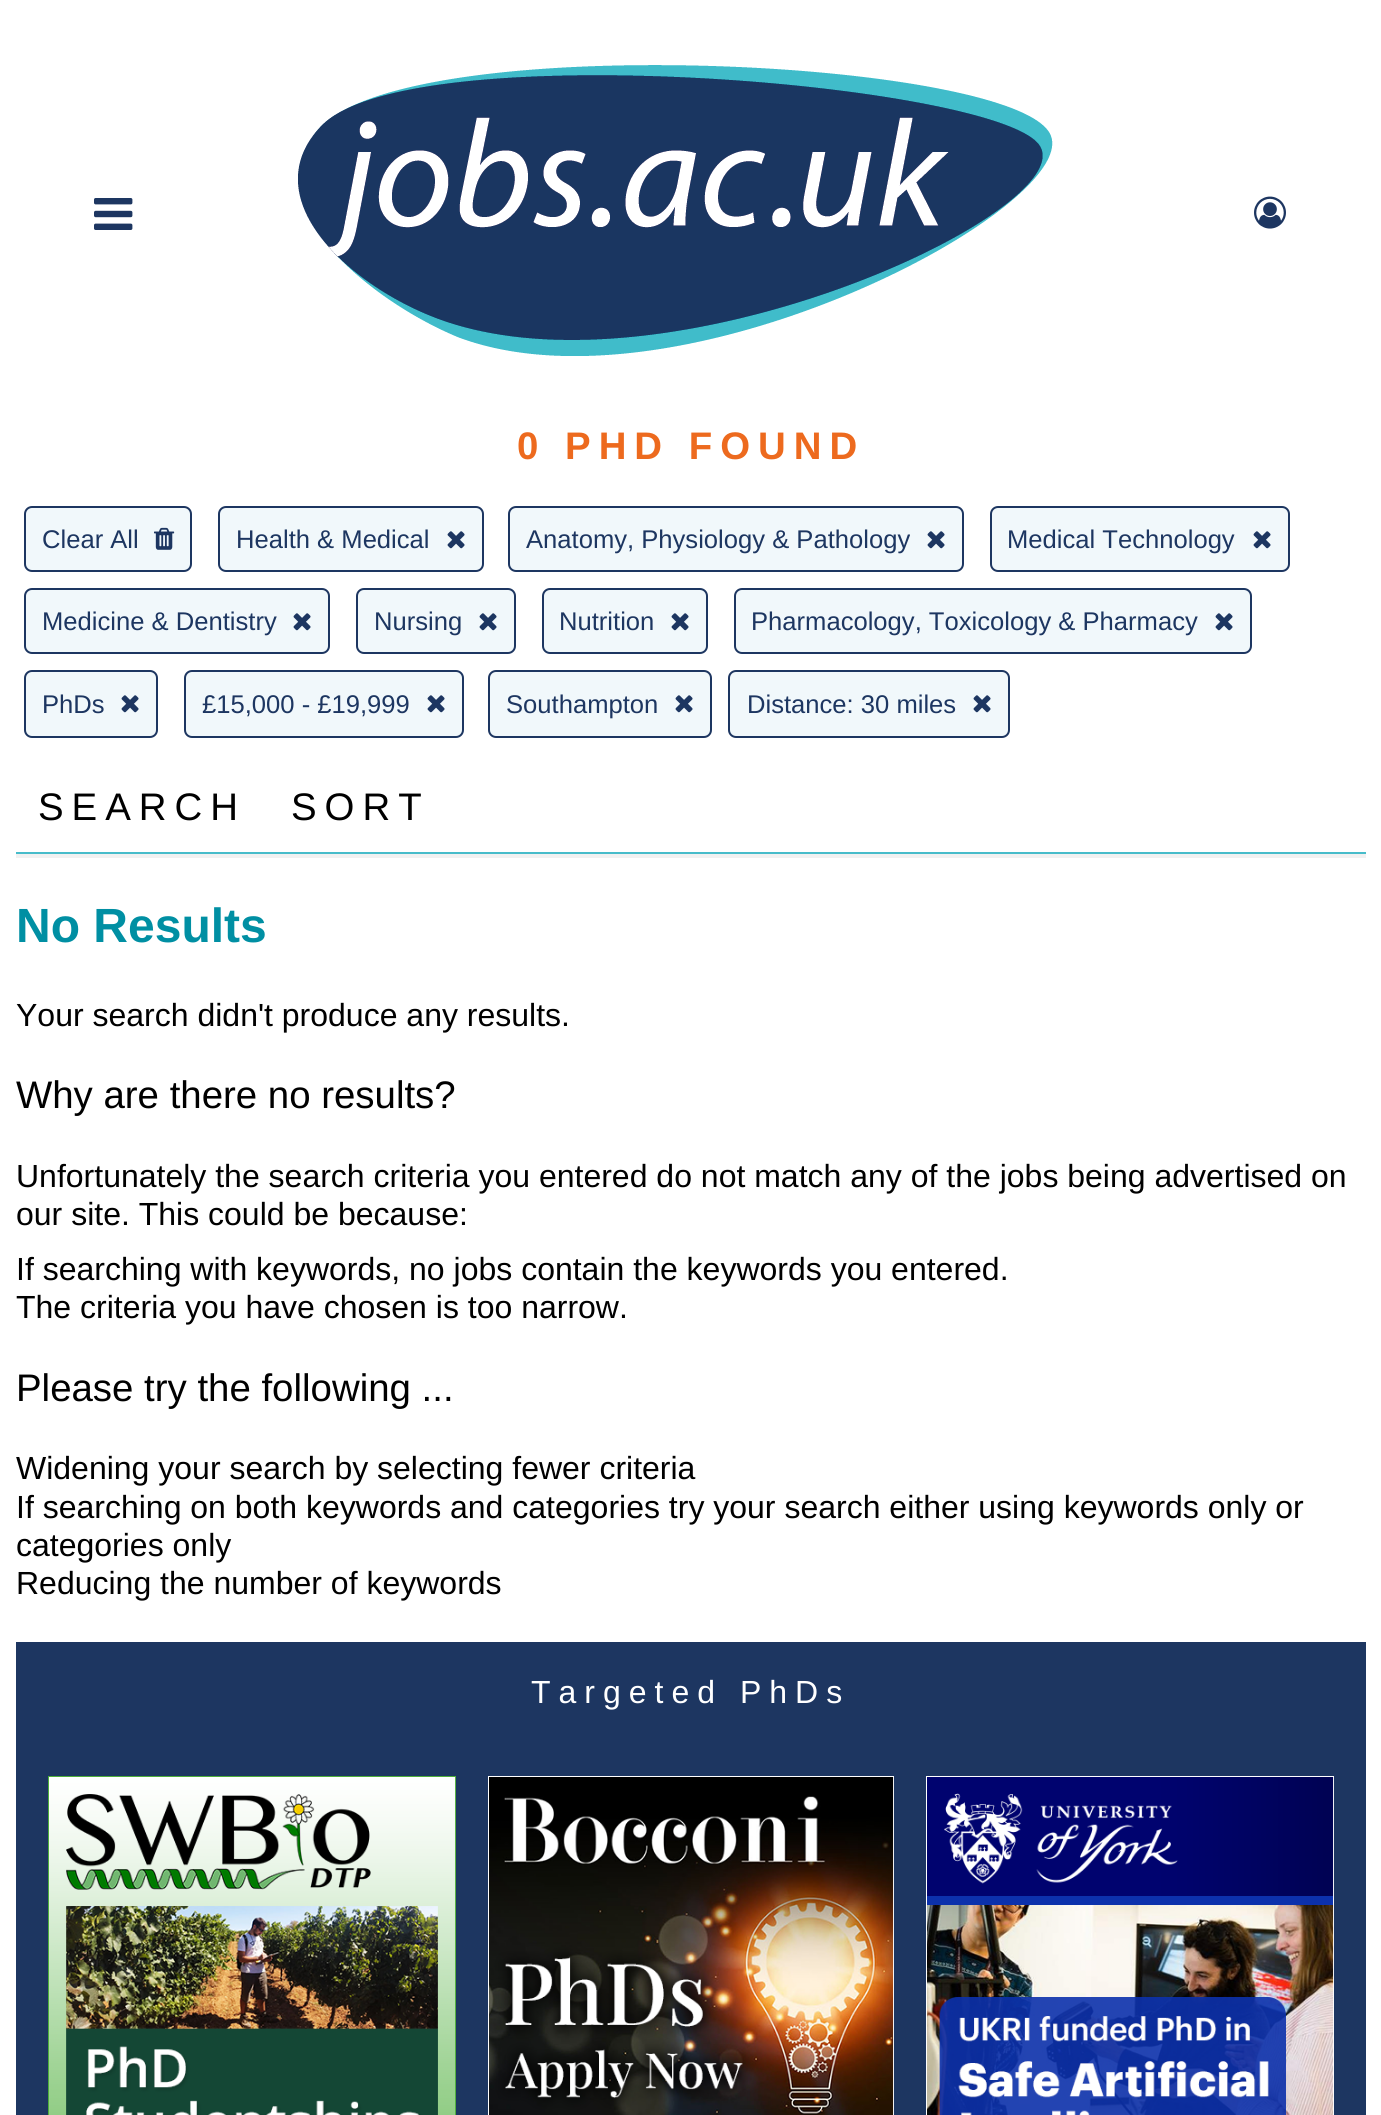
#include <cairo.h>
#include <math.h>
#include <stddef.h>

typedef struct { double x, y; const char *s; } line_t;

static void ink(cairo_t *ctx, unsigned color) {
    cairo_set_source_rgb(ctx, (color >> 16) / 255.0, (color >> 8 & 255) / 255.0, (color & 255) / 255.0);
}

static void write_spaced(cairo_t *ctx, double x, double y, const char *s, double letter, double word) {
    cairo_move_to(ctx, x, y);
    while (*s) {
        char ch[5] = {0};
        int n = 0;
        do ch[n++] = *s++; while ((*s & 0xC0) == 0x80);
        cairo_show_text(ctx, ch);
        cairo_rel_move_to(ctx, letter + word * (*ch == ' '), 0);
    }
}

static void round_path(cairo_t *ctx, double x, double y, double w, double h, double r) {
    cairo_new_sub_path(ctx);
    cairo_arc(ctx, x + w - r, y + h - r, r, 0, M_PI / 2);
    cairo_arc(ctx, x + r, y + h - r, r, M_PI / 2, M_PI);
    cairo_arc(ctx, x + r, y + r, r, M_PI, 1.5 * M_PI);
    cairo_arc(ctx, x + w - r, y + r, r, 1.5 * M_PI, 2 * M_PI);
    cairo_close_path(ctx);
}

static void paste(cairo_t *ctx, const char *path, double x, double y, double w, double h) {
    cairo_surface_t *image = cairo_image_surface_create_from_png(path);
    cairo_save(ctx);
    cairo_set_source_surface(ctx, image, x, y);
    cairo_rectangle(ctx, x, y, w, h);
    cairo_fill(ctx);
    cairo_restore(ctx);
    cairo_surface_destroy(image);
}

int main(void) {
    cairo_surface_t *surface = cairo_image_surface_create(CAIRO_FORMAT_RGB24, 1381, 2115);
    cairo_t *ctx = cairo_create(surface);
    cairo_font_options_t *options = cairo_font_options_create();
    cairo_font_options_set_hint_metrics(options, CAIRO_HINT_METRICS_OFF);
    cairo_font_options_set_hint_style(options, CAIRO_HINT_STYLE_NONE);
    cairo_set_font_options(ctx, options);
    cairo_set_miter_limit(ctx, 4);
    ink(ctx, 0xFFFFFF);
    cairo_paint(ctx);
    paste(ctx, "media/1.png", 94, 198, 39, 32);
    paste(ctx, "media/2.png", 298, 65, 755, 291);
    paste(ctx, "media/3.png", 1254, 196, 32, 33);
    cairo_select_font_face(ctx, "Liberation Sans", CAIRO_FONT_SLANT_NORMAL, CAIRO_FONT_WEIGHT_BOLD);
    cairo_set_font_size(ctx, 38.4);
    ink(ctx, 0xED6A1E);
    write_spaced(ctx, 517, 459, "0 PHD FOUND", 8, 0);
    ink(ctx, 0xF1F1F1);
    cairo_rectangle(ctx, 16, 854, 1350, 4);
    cairo_fill(ctx);
    ink(ctx, 0xF1F8FB);
    round_path(ctx, 25, 507, 166, 64, 7);
    cairo_fill_preserve(ctx);
    ink(ctx, 0x1D3661);
    cairo_stroke(ctx);
    cairo_select_font_face(ctx, "Liberation Sans", CAIRO_FONT_SLANT_NORMAL, CAIRO_FONT_WEIGHT_NORMAL);
    cairo_set_font_size(ctx, 25.6);
    cairo_move_to(ctx, 42, 548);
    cairo_show_text(ctx, "Clear All");
    paste(ctx, "media/4.png", 154, 527, 21, 23);
    ink(ctx, 0xF1F8FB);
    round_path(ctx, 219, 507, 264, 64, 7);
    cairo_fill_preserve(ctx);
    ink(ctx, 0x1D3661);
    cairo_stroke(ctx);
    cairo_move_to(ctx, 236, 548);
    cairo_show_text(ctx, "Health & Medical");
    paste(ctx, "media/5.png", 447, 531, 18, 18);
    ink(ctx, 0xF1F8FB);
    round_path(ctx, 509, 507, 454, 64, 7);
    cairo_fill_preserve(ctx);
    ink(ctx, 0x1D3661);
    cairo_stroke(ctx);
    cairo_move_to(ctx, 526, 548);
    cairo_show_text(ctx, "Anatomy, Physiology & Pathology");
    paste(ctx, "media/5.png", 927, 531, 18, 18);
    ink(ctx, 0xF1F8FB);
    round_path(ctx, 991, 507, 298, 64, 7);
    cairo_fill_preserve(ctx);
    ink(ctx, 0x1D3661);
    cairo_stroke(ctx);
    cairo_move_to(ctx, 1007, 548);
    cairo_show_text(ctx, "Medical Technology");
    paste(ctx, "media/5.png", 1253, 531, 18, 18);
    ink(ctx, 0xF1F8FB);
    round_path(ctx, 25, 589, 304, 64, 7);
    cairo_fill_preserve(ctx);
    ink(ctx, 0x1D3661);
    cairo_stroke(ctx);
    cairo_move_to(ctx, 42, 630);
    cairo_show_text(ctx, "Medicine & Dentistry");
    paste(ctx, "media/5.png", 293, 613, 18, 18);
    ink(ctx, 0xF1F8FB);
    round_path(ctx, 357, 589, 158, 64, 7);
    cairo_fill_preserve(ctx);
    ink(ctx, 0x1D3661);
    cairo_stroke(ctx);
    cairo_move_to(ctx, 374, 630);
    cairo_show_text(ctx, "Nursing");
    paste(ctx, "media/5.png", 479, 613, 18, 18);
    ink(ctx, 0xF1F8FB);
    round_path(ctx, 543, 589, 164, 64, 7);
    cairo_fill_preserve(ctx);
    ink(ctx, 0x1D3661);
    cairo_stroke(ctx);
    cairo_move_to(ctx, 559, 630);
    cairo_show_text(ctx, "Nutrition");
    paste(ctx, "media/5.png", 671, 613, 18, 18);
    ink(ctx, 0xF1F8FB);
    round_path(ctx, 735, 589, 516, 64, 7);
    cairo_fill_preserve(ctx);
    ink(ctx, 0x1D3661);
    cairo_stroke(ctx);
    cairo_move_to(ctx, 751, 630);
    cairo_show_text(ctx, "Pharmacology, Toxicology & Pharmacy");
    paste(ctx, "media/5.png", 1215, 613, 18, 18);
    ink(ctx, 0xF1F8FB);
    round_path(ctx, 25, 671, 132, 66, 7);
    cairo_fill_preserve(ctx);
    ink(ctx, 0x1D3661);
    cairo_stroke(ctx);
    cairo_move_to(ctx, 42, 713);
    cairo_show_text(ctx, "PhDs");
    paste(ctx, "media/5.png", 121, 695, 18, 18);
    ink(ctx, 0xF1F8FB);
    round_path(ctx, 185, 671, 278, 66, 7);
    cairo_fill_preserve(ctx);
    ink(ctx, 0x1D3661);
    cairo_stroke(ctx);
    cairo_move_to(ctx, 202, 713);
    cairo_show_text(ctx, "£15,000 - £19,999");
    paste(ctx, "media/5.png", 427, 695, 18, 18);
    ink(ctx, 0xF1F8FB);
    round_path(ctx, 489, 671, 222, 66, 7);
    cairo_fill_preserve(ctx);
    ink(ctx, 0x1D3661);
    cairo_stroke(ctx);
    cairo_move_to(ctx, 506, 713);
    cairo_show_text(ctx, "Southampton");
    paste(ctx, "media/5.png", 675, 695, 18, 18);
    ink(ctx, 0xF1F8FB);
    round_path(ctx, 729, 671, 280, 66, 7);
    cairo_fill_preserve(ctx);
    ink(ctx, 0x1D3661);
    cairo_stroke(ctx);
    cairo_move_to(ctx, 747, 713);
    cairo_show_text(ctx, "Distance: 30 miles");
    paste(ctx, "media/5.png", 973, 695, 18, 18);
    ink(ctx, 0x47BCCA);
    cairo_rectangle(ctx, 452, 852, 914, 2);
    cairo_fill(ctx);
    cairo_rectangle(ctx, 16, 852, 436, 2);
    cairo_fill(ctx);
    cairo_set_font_size(ctx, 38.4);
    ink(ctx, 0x000000);
    write_spaced(ctx, 38, 820, "SEARCH", 8, 0);
    write_spaced(ctx, 291, 820, "SORT", 8, 0);
    cairo_select_font_face(ctx, "Liberation Sans", CAIRO_FONT_SLANT_NORMAL, CAIRO_FONT_WEIGHT_BOLD);
    cairo_set_font_size(ctx, 48);
    ink(ctx, 0x008FA3);
    cairo_move_to(ctx, 16, 942);
    cairo_show_text(ctx, "No Results");
    cairo_select_font_face(ctx, "Liberation Sans", CAIRO_FONT_SLANT_NORMAL, CAIRO_FONT_WEIGHT_NORMAL);
    cairo_set_font_size(ctx, 32);
    ink(ctx, 0x000000);
    cairo_move_to(ctx, 16, 1026);
    cairo_show_text(ctx, "Your search didn't produce any results.");
    cairo_set_font_size(ctx, 38.4);
    cairo_move_to(ctx, 16, 1108);
    cairo_show_text(ctx, "Why are there no results?");
    cairo_set_font_size(ctx, 32);
    {
        static const line_t items[] = {
            {16, 1187, "Unfortunately the search criteria you entered do not match any of the jobs being advertised on"},
            {16, 1225, "our site. This could be because:"},
            {16, 1280, "If searching with keywords, no jobs contain the keywords you entered."},
            {16, 1318, "The criteria you have chosen is too narrow."},
        };
        for (size_t i = 0; i < sizeof items / sizeof *items; i++) {
            cairo_move_to(ctx, items[i].x, items[i].y);
            cairo_show_text(ctx, items[i].s);
        }
    }
    cairo_set_font_size(ctx, 38.4);
    cairo_move_to(ctx, 16, 1401);
    cairo_show_text(ctx, "Please try the following ...");
    cairo_set_font_size(ctx, 32);
    {
        static const line_t items[] = {
            {16, 1479, "Widening your search by selecting fewer criteria"},
            {16, 1518, "If searching on both keywords and categories try your search either using keywords only or"},
            {16, 1556, "categories only"},
            {16, 1594, "Reducing the number of keywords"},
        };
        for (size_t i = 0; i < sizeof items / sizeof *items; i++) {
            cairo_move_to(ctx, items[i].x, items[i].y);
            cairo_show_text(ctx, items[i].s);
        }
    }
    ink(ctx, 0x1D3661);
    cairo_rectangle(ctx, 16, 1642, 1350, 473);
    cairo_fill(ctx);
    ink(ctx, 0xFFFFFF);
    write_spaced(ctx, 531, 1703, "Targeted PhDs", 8, 0);
    paste(ctx, "media/6.png", 48, 1776, 408, 339);
    paste(ctx, "media/7.png", 488, 1776, 406, 339);
    paste(ctx, "media/8.png", 926, 1776, 408, 339);
    cairo_surface_write_to_png(surface, "image.png");
    cairo_font_options_destroy(options);
    cairo_destroy(ctx);
    cairo_surface_destroy(surface);
    return 0;
}
